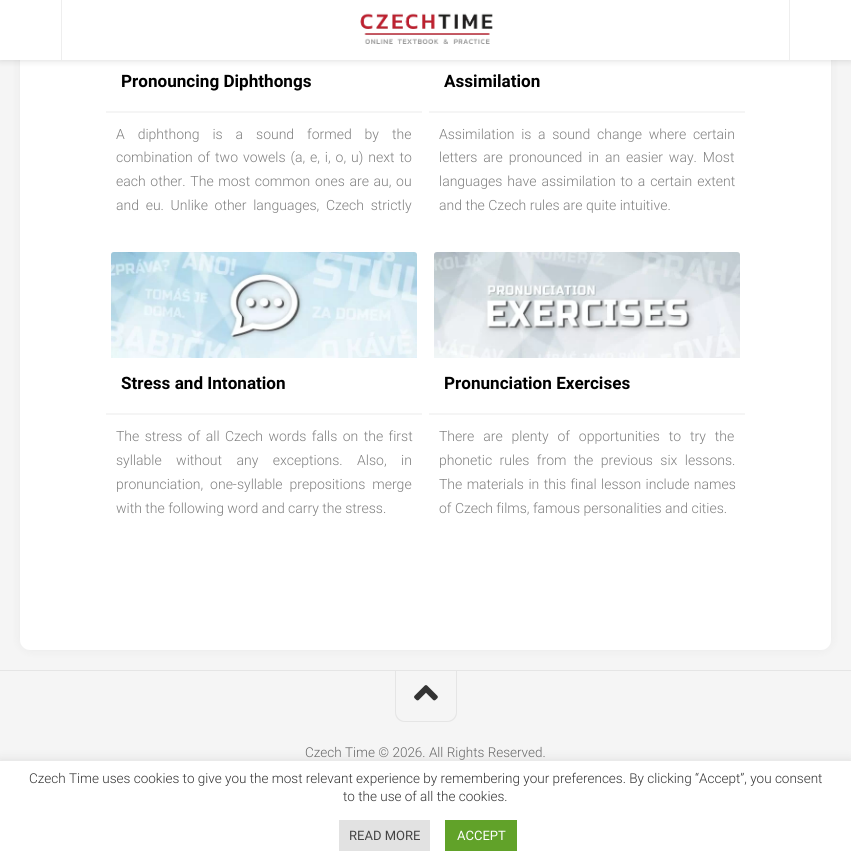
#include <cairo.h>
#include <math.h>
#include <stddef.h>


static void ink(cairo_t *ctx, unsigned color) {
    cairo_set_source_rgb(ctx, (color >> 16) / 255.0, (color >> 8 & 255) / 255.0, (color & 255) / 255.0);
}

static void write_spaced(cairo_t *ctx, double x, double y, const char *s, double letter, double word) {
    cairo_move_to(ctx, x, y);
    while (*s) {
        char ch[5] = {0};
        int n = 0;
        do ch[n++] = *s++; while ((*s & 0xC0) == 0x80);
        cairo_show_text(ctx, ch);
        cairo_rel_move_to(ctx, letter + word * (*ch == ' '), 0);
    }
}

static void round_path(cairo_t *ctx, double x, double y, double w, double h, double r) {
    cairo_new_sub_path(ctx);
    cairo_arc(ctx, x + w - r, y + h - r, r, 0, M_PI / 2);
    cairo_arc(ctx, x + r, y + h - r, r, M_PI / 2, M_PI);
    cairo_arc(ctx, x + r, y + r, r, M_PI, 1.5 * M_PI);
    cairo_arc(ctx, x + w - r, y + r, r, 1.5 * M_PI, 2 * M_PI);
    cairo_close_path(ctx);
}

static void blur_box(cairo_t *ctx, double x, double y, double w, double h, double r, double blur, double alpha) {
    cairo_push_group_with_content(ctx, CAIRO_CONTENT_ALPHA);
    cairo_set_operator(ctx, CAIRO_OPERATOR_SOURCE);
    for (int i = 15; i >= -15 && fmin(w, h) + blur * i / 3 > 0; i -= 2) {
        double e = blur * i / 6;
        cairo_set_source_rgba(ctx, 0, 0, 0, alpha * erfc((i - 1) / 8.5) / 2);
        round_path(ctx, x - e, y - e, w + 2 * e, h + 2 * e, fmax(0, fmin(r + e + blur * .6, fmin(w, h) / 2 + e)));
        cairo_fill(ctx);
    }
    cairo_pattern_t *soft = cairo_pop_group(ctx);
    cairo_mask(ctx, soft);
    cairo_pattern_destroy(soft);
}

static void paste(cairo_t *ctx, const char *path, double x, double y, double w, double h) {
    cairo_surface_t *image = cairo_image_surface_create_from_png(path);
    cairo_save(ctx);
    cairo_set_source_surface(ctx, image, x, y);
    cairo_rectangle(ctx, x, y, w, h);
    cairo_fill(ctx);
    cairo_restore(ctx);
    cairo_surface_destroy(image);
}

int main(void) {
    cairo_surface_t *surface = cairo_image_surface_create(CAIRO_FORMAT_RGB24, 851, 864);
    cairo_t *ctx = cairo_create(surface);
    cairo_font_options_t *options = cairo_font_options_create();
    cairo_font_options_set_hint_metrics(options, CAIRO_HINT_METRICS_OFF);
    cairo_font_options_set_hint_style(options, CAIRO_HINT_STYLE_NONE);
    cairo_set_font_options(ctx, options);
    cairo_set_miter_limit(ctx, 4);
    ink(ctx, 0xF5F5F5);
    cairo_paint(ctx);
    ink(ctx, 0x000000);
    blur_box(ctx, 20, -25, 811, 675, 10, 5, 0.05);
    ink(ctx, 0xFFFFFF);
    round_path(ctx, 20, -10, 811, 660, 10);
    cairo_fill(ctx);
    ink(ctx, 0x000000);
    blur_box(ctx, 0, 0, 851, 60, 0, 4, 0.15);
    ink(ctx, 0xFFFFFF);
    cairo_rectangle(ctx, 0, 0, 851, 60);
    cairo_fill(ctx);
    ink(ctx, 0xEEEEEE);
    cairo_rectangle(ctx, 61, 0, 1, 60);
    cairo_fill(ctx);
    paste(ctx, "media/1.png", 360, 13, 133, 31);
    cairo_rectangle(ctx, 789, 0, 1, 60);
    cairo_fill(ctx);
    ink(ctx, 0xF5F5F5);
    cairo_rectangle(ctx, 106, 111, 316, 2);
    cairo_fill(ctx);
    cairo_select_font_face(ctx, "Roboto", CAIRO_FONT_SLANT_NORMAL, CAIRO_FONT_WEIGHT_BOLD);
    cairo_set_font_size(ctx, 17.1);
    ink(ctx, 0x000000);
    cairo_move_to(ctx, 121, 87);
    cairo_show_text(ctx, "Pronouncing Diphthongs");
    cairo_select_font_face(ctx, "Roboto Light", CAIRO_FONT_SLANT_NORMAL, CAIRO_FONT_WEIGHT_NORMAL);
    cairo_set_font_size(ctx, 14);
    ink(ctx, 0x808080);
    write_spaced(ctx, 116, 139, "A diphthong is a sound formed by the", 0, 9.5);
    write_spaced(ctx, 116, 162, "combination of two vowels (a, e, i, o, u) next to", 0, 1.5);
    write_spaced(ctx, 116, 186, "each other. The most common ones are au, ou", 0, 1.25);
    write_spaced(ctx, 116, 210, "and eu. Unlike other languages, Czech strictly", 0, 3.25);
    ink(ctx, 0xF5F5F5);
    cairo_rectangle(ctx, 429, 111, 316, 2);
    cairo_fill(ctx);
    cairo_select_font_face(ctx, "Roboto", CAIRO_FONT_SLANT_NORMAL, CAIRO_FONT_WEIGHT_BOLD);
    cairo_set_font_size(ctx, 17.1);
    ink(ctx, 0x000000);
    cairo_move_to(ctx, 444, 87);
    cairo_show_text(ctx, "Assimilation");
    cairo_select_font_face(ctx, "Roboto Light", CAIRO_FONT_SLANT_NORMAL, CAIRO_FONT_WEIGHT_NORMAL);
    cairo_set_font_size(ctx, 14);
    ink(ctx, 0x808080);
    write_spaced(ctx, 439, 139, "Assimilation is a sound change where certain", 0, 3.25);
    write_spaced(ctx, 439, 162, "letters are pronounced in an easier way. Most", 0, 2.5);
    write_spaced(ctx, 439, 186, "languages have assimilation to a certain extent", 0, 1.5);
    cairo_move_to(ctx, 439, 210);
    cairo_show_text(ctx, "and the Czech rules are quite intuitive.");
    ink(ctx, 0xF5F5F5);
    cairo_rectangle(ctx, 106, 413, 316, 2);
    cairo_fill(ctx);
    paste(ctx, "media/2.png", 111, 252, 306, 106);
    cairo_select_font_face(ctx, "Roboto", CAIRO_FONT_SLANT_NORMAL, CAIRO_FONT_WEIGHT_BOLD);
    cairo_set_font_size(ctx, 17.1);
    ink(ctx, 0x000000);
    cairo_move_to(ctx, 121, 389);
    cairo_show_text(ctx, "Stress and Intonation");
    cairo_select_font_face(ctx, "Roboto Light", CAIRO_FONT_SLANT_NORMAL, CAIRO_FONT_WEIGHT_NORMAL);
    cairo_set_font_size(ctx, 14);
    ink(ctx, 0x808080);
    write_spaced(ctx, 116, 441, "The stress of all Czech words falls on the first", 0, 2);
    write_spaced(ctx, 116, 465, "syllable without any exceptions. Also, in", 0, 11);
    write_spaced(ctx, 116, 489, "pronunciation, one-syllable prepositions merge", 0, 3.5);
    cairo_move_to(ctx, 116, 513);
    cairo_show_text(ctx, "with the following word and carry the stress.");
    ink(ctx, 0xF5F5F5);
    cairo_rectangle(ctx, 429, 413, 316, 2);
    cairo_fill(ctx);
    paste(ctx, "media/3.png", 434, 252, 306, 106);
    cairo_select_font_face(ctx, "Roboto", CAIRO_FONT_SLANT_NORMAL, CAIRO_FONT_WEIGHT_BOLD);
    cairo_set_font_size(ctx, 17.1);
    ink(ctx, 0x000000);
    cairo_move_to(ctx, 444, 389);
    cairo_show_text(ctx, "Pronunciation Exercises");
    cairo_select_font_face(ctx, "Roboto Light", CAIRO_FONT_SLANT_NORMAL, CAIRO_FONT_WEIGHT_NORMAL);
    cairo_set_font_size(ctx, 14);
    ink(ctx, 0x808080);
    write_spaced(ctx, 439, 441, "There are plenty of opportunities to try the", 0, 5.5);
    write_spaced(ctx, 439, 465, "phonetic rules from the previous six lessons.", 0, 4);
    write_spaced(ctx, 439, 489, "The materials in this final lesson include names", 0, 1);
    cairo_move_to(ctx, 439, 513);
    cairo_show_text(ctx, "of Czech films, famous personalities and cities.");
    ink(ctx, 0xE5E5E5);
    cairo_rectangle(ctx, 0, 670, 851, 1);
    cairo_fill(ctx);
    cairo_set_fill_rule(ctx, CAIRO_FILL_RULE_EVEN_ODD);
    cairo_new_path(ctx);
    cairo_move_to(ctx, 395, 671);
    cairo_line_to(ctx, 457, 671);
    cairo_line_to(ctx, 457, 712);
    cairo_curve_to(ctx, 457, 718, 453, 722, 447, 722);
    cairo_line_to(ctx, 405, 722);
    cairo_curve_to(ctx, 399, 722, 395, 718, 395, 712);
    cairo_close_path(ctx);
    cairo_move_to(ctx, 396, 671);
    cairo_line_to(ctx, 456, 671);
    cairo_line_to(ctx, 456, 712);
    cairo_curve_to(ctx, 456, 717, 452, 721, 447, 721);
    cairo_line_to(ctx, 405, 721);
    cairo_curve_to(ctx, 400, 721, 396, 717, 396, 712);
    cairo_close_path(ctx);
    cairo_fill(ctx);
    paste(ctx, "media/4.png", 414, 685, 24, 16);
    cairo_set_font_size(ctx, 13.5);
    ink(ctx, 0x666666);
    cairo_move_to(ctx, 305, 757);
    cairo_show_text(ctx, "Czech Time © 2026. All Rights Reserved.");
    ink(ctx, 0xACABAB);
    blur_box(ctx, 0, 760, 851, 103, 0, 5, 0.3);
    ink(ctx, 0xFFFFFF);
    cairo_rectangle(ctx, 0, 761, 851, 103);
    cairo_fill(ctx);
    ink(ctx, 0x333333);
    cairo_move_to(ctx, 29, 783);
    cairo_show_text(ctx, "Czech Time uses cookies to give you the most relevant experience by remembering your preferences. By clicking “Accept”, you consent");
    cairo_move_to(ctx, 343, 801);
    cairo_show_text(ctx, "to the use of all the cookies.");
    ink(ctx, 0xE2E2E2);
    cairo_rectangle(ctx, 339, 820, 91, 31);
    cairo_fill(ctx);
    cairo_select_font_face(ctx, "Roboto", CAIRO_FONT_SLANT_NORMAL, CAIRO_FONT_WEIGHT_NORMAL);
    cairo_set_font_size(ctx, 13);
    ink(ctx, 0x444444);
    cairo_move_to(ctx, 349, 840);
    cairo_show_text(ctx, "READ MORE");
    ink(ctx, 0x61A229);
    cairo_rectangle(ctx, 445, 820, 72, 31);
    cairo_fill(ctx);
    ink(ctx, 0xFFFFFF);
    cairo_move_to(ctx, 457, 840);
    cairo_show_text(ctx, "ACCEPT");
    cairo_surface_write_to_png(surface, "image.png");
    cairo_font_options_destroy(options);
    cairo_destroy(ctx);
    cairo_surface_destroy(surface);
    return 0;
}
